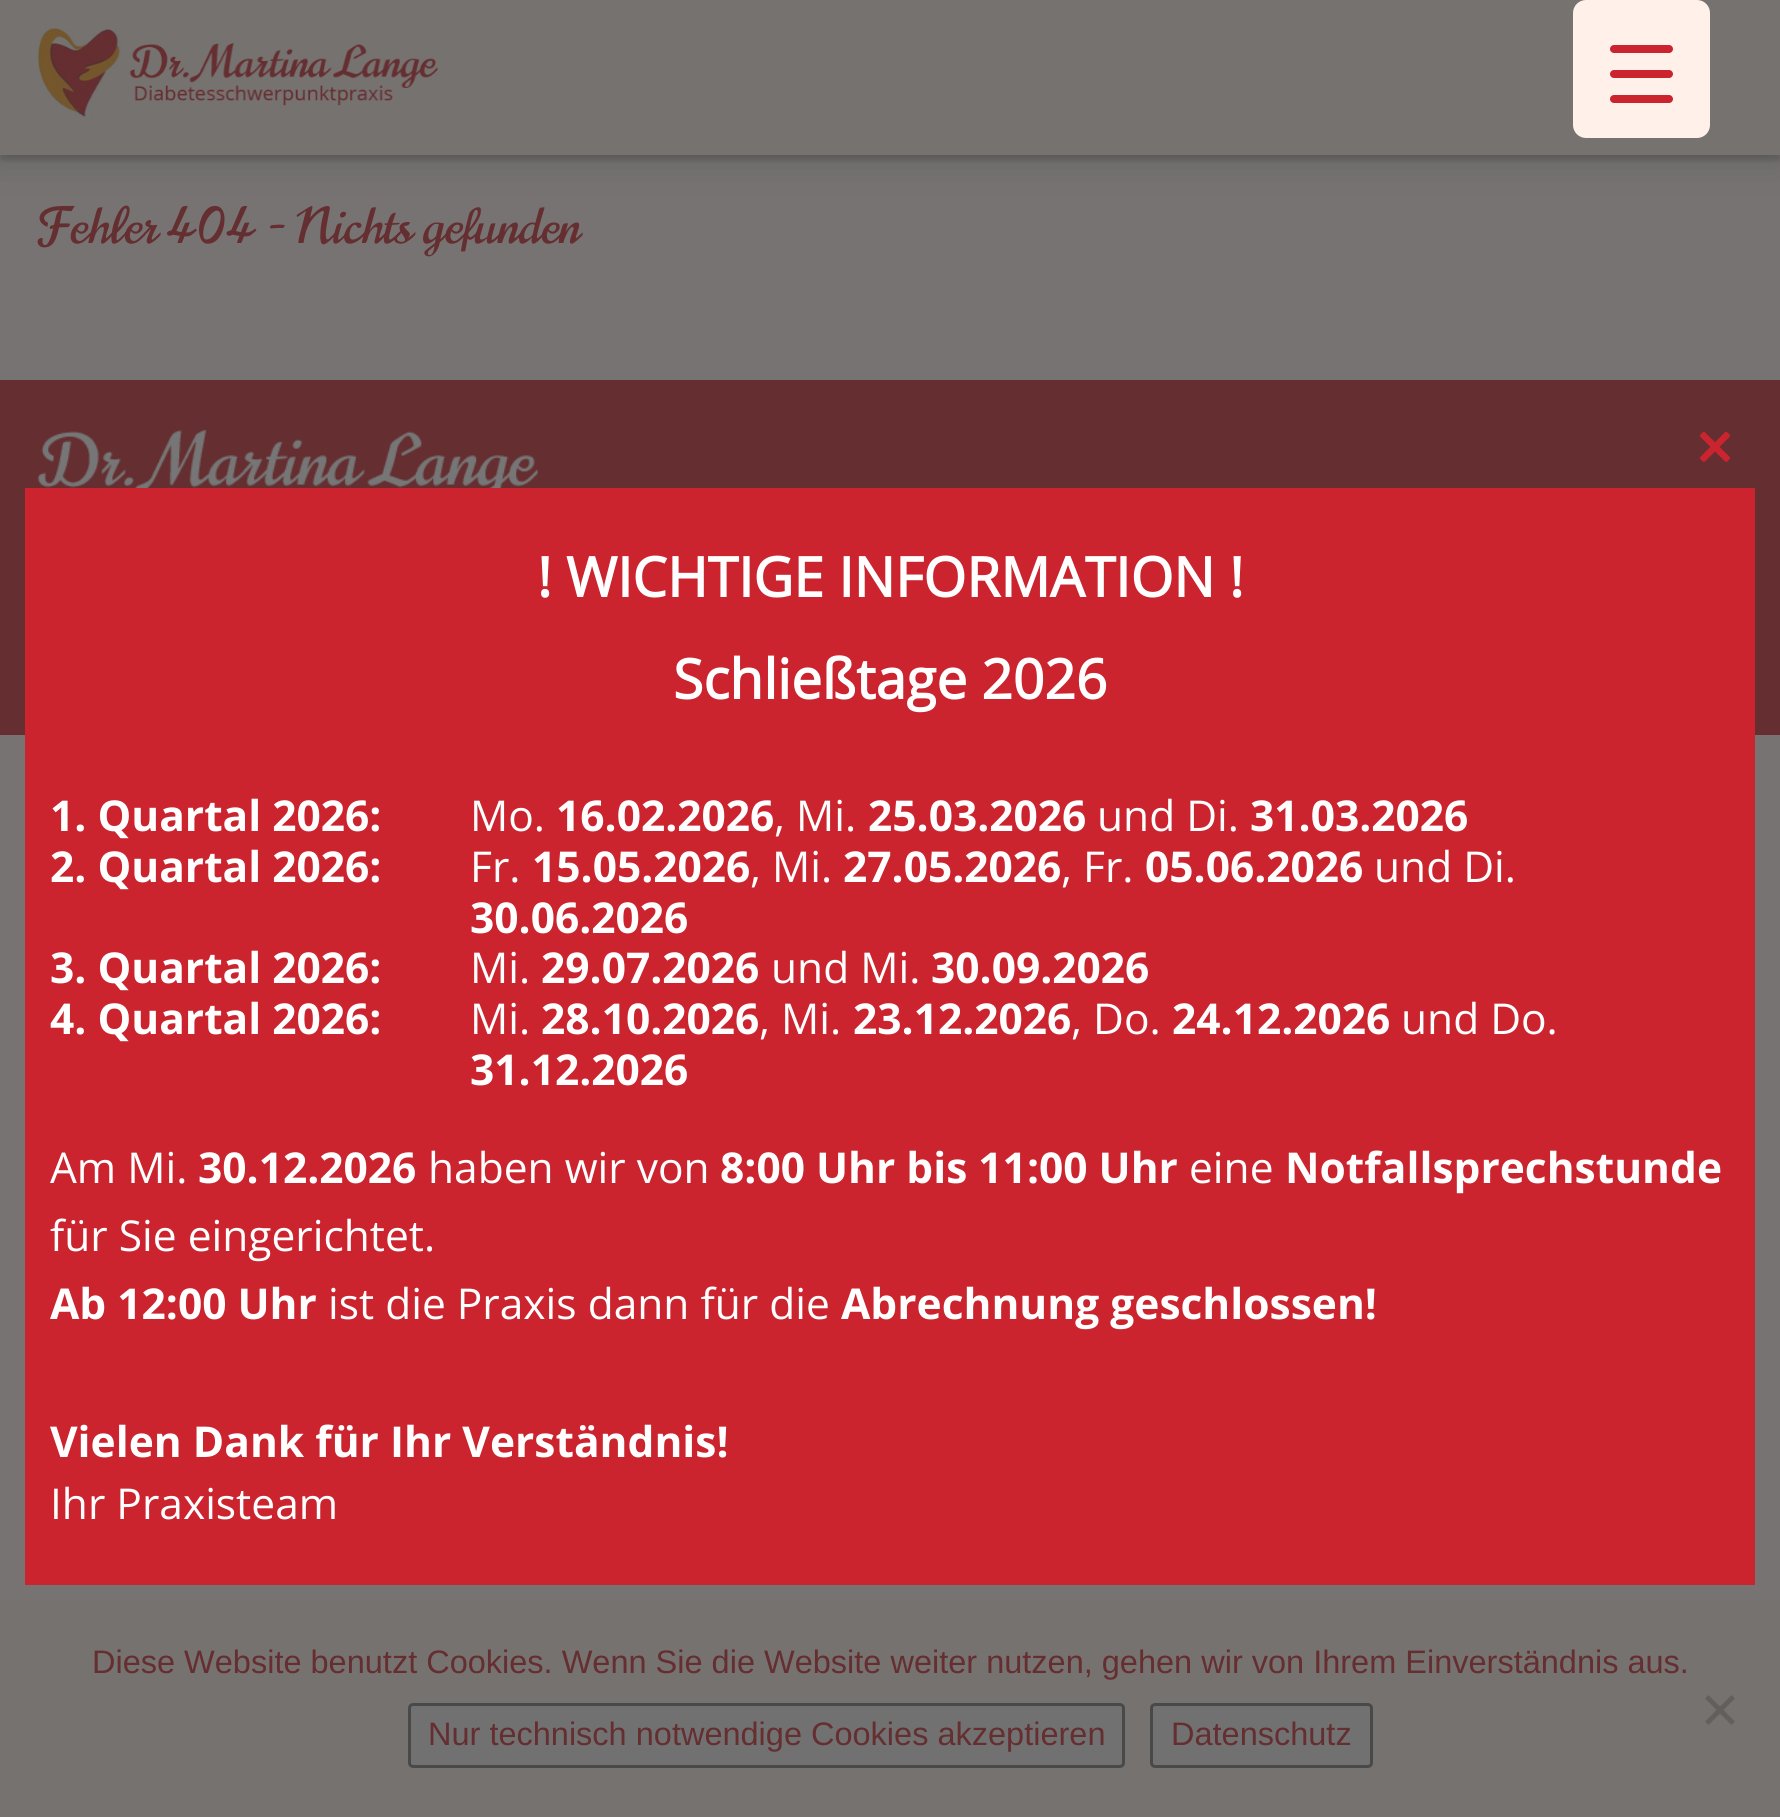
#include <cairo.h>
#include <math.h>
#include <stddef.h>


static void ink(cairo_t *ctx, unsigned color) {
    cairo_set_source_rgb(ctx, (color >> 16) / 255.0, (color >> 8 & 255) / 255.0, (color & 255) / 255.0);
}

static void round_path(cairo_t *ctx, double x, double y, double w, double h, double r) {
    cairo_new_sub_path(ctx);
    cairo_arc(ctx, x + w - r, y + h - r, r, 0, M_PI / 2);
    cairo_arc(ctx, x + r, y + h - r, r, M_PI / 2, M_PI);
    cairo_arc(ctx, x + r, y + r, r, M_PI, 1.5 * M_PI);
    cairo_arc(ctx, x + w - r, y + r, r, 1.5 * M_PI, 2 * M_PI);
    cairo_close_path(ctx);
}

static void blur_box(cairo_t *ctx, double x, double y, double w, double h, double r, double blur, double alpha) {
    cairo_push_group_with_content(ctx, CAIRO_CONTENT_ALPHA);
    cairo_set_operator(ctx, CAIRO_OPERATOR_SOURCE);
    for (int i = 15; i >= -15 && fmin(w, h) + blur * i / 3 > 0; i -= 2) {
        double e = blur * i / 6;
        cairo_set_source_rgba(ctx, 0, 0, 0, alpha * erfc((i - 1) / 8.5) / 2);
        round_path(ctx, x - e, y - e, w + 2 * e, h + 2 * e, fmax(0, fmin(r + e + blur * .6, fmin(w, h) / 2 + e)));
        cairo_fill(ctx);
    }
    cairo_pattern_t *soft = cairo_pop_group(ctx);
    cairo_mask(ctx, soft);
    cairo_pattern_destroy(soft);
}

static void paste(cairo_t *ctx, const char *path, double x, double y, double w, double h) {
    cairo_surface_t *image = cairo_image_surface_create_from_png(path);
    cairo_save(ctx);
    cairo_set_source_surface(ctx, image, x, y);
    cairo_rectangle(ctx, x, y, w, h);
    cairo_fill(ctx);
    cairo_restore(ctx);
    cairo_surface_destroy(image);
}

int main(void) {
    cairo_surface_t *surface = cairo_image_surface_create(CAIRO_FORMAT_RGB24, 1780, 1817);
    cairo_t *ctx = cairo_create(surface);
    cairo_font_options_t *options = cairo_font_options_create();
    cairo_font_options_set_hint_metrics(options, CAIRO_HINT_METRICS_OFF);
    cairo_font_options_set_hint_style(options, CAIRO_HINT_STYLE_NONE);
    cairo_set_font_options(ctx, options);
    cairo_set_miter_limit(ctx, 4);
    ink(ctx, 0x767372);
    cairo_paint(ctx);
    ink(ctx, 0x222222);
    blur_box(ctx, 0, 5, 1780, 155, 0, 19, 0.2);
    blur_box(ctx, 0, 5, 1780, 155, 0, 2.5, 0.2);
    ink(ctx, 0x76726F);
    cairo_rectangle(ctx, 0, 0, 1780, 155);
    cairo_fill(ctx);
    paste(ctx, "media/1.png", 37, 27, 401, 91);
    ink(ctx, 0xFFF1E9);
    round_path(ctx, 1573, 0, 137, 138, 13);
    cairo_fill(ctx);
    ink(ctx, 0xCB242E);
    round_path(ctx, 1610, 70, 63, 8, 4);
    cairo_fill(ctx);
    round_path(ctx, 1610, 45, 63, 8, 4);
    cairo_fill(ctx);
    round_path(ctx, 1610, 95, 63, 8, 4);
    cairo_fill(ctx);
    cairo_select_font_face(ctx, "Norican", CAIRO_FONT_SLANT_NORMAL, CAIRO_FONT_WEIGHT_NORMAL);
    cairo_set_font_size(ctx, 50);
    ink(ctx, 0x652E31);
    cairo_move_to(ctx, 38, 243);
    cairo_show_text(ctx, "Fehler 404 - Nichts gefunden");
    cairo_rectangle(ctx, 0, 380, 1780, 355);
    cairo_fill(ctx);
    paste(ctx, "media/2.png", 37, 430, 501, 58);
    ink(ctx, 0xCB242E);
    cairo_rectangle(ctx, 25, 488, 1730, 1097);
    cairo_fill(ctx);
    paste(ctx, "media/3.png", 1700, 431, 30, 31);
    cairo_select_font_face(ctx, "Open Sans", CAIRO_FONT_SLANT_NORMAL, CAIRO_FONT_WEIGHT_BOLD);
    cairo_set_font_size(ctx, 55);
    ink(ctx, 0xFFFFFF);
    cairo_move_to(ctx, 537, 597);
    cairo_show_text(ctx, "! WICHTIGE INFORMATION !");
    cairo_move_to(ctx, 673, 699);
    cairo_show_text(ctx, "Schließtage 2026");
    cairo_select_font_face(ctx, "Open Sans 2", CAIRO_FONT_SLANT_NORMAL, CAIRO_FONT_WEIGHT_BOLD);
    cairo_set_font_size(ctx, 42.5);
    cairo_move_to(ctx, 50, 831);
    cairo_show_text(ctx, "1. Quartal 2026:");
    cairo_select_font_face(ctx, "Open Sans", CAIRO_FONT_SLANT_NORMAL, CAIRO_FONT_WEIGHT_NORMAL);
    cairo_move_to(ctx, 470, 831);
    cairo_show_text(ctx, "Mo.");
    cairo_select_font_face(ctx, "Open Sans 2", CAIRO_FONT_SLANT_NORMAL, CAIRO_FONT_WEIGHT_BOLD);
    cairo_move_to(ctx, 556, 831);
    cairo_show_text(ctx, "16.02.2026");
    cairo_select_font_face(ctx, "Open Sans", CAIRO_FONT_SLANT_NORMAL, CAIRO_FONT_WEIGHT_NORMAL);
    cairo_move_to(ctx, 774, 831);
    cairo_show_text(ctx, ", Mi.");
    cairo_select_font_face(ctx, "Open Sans 2", CAIRO_FONT_SLANT_NORMAL, CAIRO_FONT_WEIGHT_BOLD);
    cairo_move_to(ctx, 868, 831);
    cairo_show_text(ctx, "25.03.2026");
    cairo_select_font_face(ctx, "Open Sans", CAIRO_FONT_SLANT_NORMAL, CAIRO_FONT_WEIGHT_NORMAL);
    cairo_move_to(ctx, 1097, 831);
    cairo_show_text(ctx, "und Di.");
    cairo_select_font_face(ctx, "Open Sans 2", CAIRO_FONT_SLANT_NORMAL, CAIRO_FONT_WEIGHT_BOLD);
    cairo_move_to(ctx, 1250, 831);
    cairo_show_text(ctx, "31.03.2026");
    cairo_move_to(ctx, 50, 882);
    cairo_show_text(ctx, "2. Quartal 2026:");
    cairo_select_font_face(ctx, "Open Sans", CAIRO_FONT_SLANT_NORMAL, CAIRO_FONT_WEIGHT_NORMAL);
    cairo_move_to(ctx, 470, 882);
    cairo_show_text(ctx, "Fr.");
    cairo_select_font_face(ctx, "Open Sans 2", CAIRO_FONT_SLANT_NORMAL, CAIRO_FONT_WEIGHT_BOLD);
    cairo_move_to(ctx, 532, 882);
    cairo_show_text(ctx, "15.05.2026");
    cairo_select_font_face(ctx, "Open Sans", CAIRO_FONT_SLANT_NORMAL, CAIRO_FONT_WEIGHT_NORMAL);
    cairo_move_to(ctx, 750, 882);
    cairo_show_text(ctx, ", Mi.");
    cairo_select_font_face(ctx, "Open Sans 2", CAIRO_FONT_SLANT_NORMAL, CAIRO_FONT_WEIGHT_BOLD);
    cairo_move_to(ctx, 843, 882);
    cairo_show_text(ctx, "27.05.2026");
    cairo_select_font_face(ctx, "Open Sans", CAIRO_FONT_SLANT_NORMAL, CAIRO_FONT_WEIGHT_NORMAL);
    cairo_move_to(ctx, 1061, 882);
    cairo_show_text(ctx, ", Fr.");
    cairo_select_font_face(ctx, "Open Sans 2", CAIRO_FONT_SLANT_NORMAL, CAIRO_FONT_WEIGHT_BOLD);
    cairo_move_to(ctx, 1145, 882);
    cairo_show_text(ctx, "05.06.2026");
    cairo_select_font_face(ctx, "Open Sans", CAIRO_FONT_SLANT_NORMAL, CAIRO_FONT_WEIGHT_NORMAL);
    cairo_move_to(ctx, 1374, 882);
    cairo_show_text(ctx, "und Di.");
    cairo_select_font_face(ctx, "Open Sans 2", CAIRO_FONT_SLANT_NORMAL, CAIRO_FONT_WEIGHT_BOLD);
    cairo_move_to(ctx, 470, 933);
    cairo_show_text(ctx, "30.06.2026");
    cairo_move_to(ctx, 50, 983);
    cairo_show_text(ctx, "3. Quartal 2026:");
    cairo_select_font_face(ctx, "Open Sans", CAIRO_FONT_SLANT_NORMAL, CAIRO_FONT_WEIGHT_NORMAL);
    cairo_move_to(ctx, 470, 983);
    cairo_show_text(ctx, "Mi.");
    cairo_select_font_face(ctx, "Open Sans 2", CAIRO_FONT_SLANT_NORMAL, CAIRO_FONT_WEIGHT_BOLD);
    cairo_move_to(ctx, 541, 983);
    cairo_show_text(ctx, "29.07.2026");
    cairo_select_font_face(ctx, "Open Sans", CAIRO_FONT_SLANT_NORMAL, CAIRO_FONT_WEIGHT_NORMAL);
    cairo_move_to(ctx, 771, 983);
    cairo_show_text(ctx, "und Mi.");
    cairo_select_font_face(ctx, "Open Sans 2", CAIRO_FONT_SLANT_NORMAL, CAIRO_FONT_WEIGHT_BOLD);
    cairo_move_to(ctx, 931, 983);
    cairo_show_text(ctx, "30.09.2026");
    cairo_move_to(ctx, 50, 1034);
    cairo_show_text(ctx, "4. Quartal 2026:");
    cairo_select_font_face(ctx, "Open Sans", CAIRO_FONT_SLANT_NORMAL, CAIRO_FONT_WEIGHT_NORMAL);
    cairo_move_to(ctx, 470, 1034);
    cairo_show_text(ctx, "Mi.");
    cairo_select_font_face(ctx, "Open Sans 2", CAIRO_FONT_SLANT_NORMAL, CAIRO_FONT_WEIGHT_BOLD);
    cairo_move_to(ctx, 541, 1034);
    cairo_show_text(ctx, "28.10.2026");
    cairo_select_font_face(ctx, "Open Sans", CAIRO_FONT_SLANT_NORMAL, CAIRO_FONT_WEIGHT_NORMAL);
    cairo_move_to(ctx, 759, 1034);
    cairo_show_text(ctx, ", Mi.");
    cairo_select_font_face(ctx, "Open Sans 2", CAIRO_FONT_SLANT_NORMAL, CAIRO_FONT_WEIGHT_BOLD);
    cairo_move_to(ctx, 853, 1034);
    cairo_show_text(ctx, "23.12.2026");
    cairo_select_font_face(ctx, "Open Sans", CAIRO_FONT_SLANT_NORMAL, CAIRO_FONT_WEIGHT_NORMAL);
    cairo_move_to(ctx, 1071, 1034);
    cairo_show_text(ctx, ", Do.");
    cairo_select_font_face(ctx, "Open Sans 2", CAIRO_FONT_SLANT_NORMAL, CAIRO_FONT_WEIGHT_BOLD);
    cairo_move_to(ctx, 1172, 1034);
    cairo_show_text(ctx, "24.12.2026");
    cairo_select_font_face(ctx, "Open Sans", CAIRO_FONT_SLANT_NORMAL, CAIRO_FONT_WEIGHT_NORMAL);
    cairo_move_to(ctx, 1401, 1034);
    cairo_show_text(ctx, "und Do.");
    cairo_select_font_face(ctx, "Open Sans 2", CAIRO_FONT_SLANT_NORMAL, CAIRO_FONT_WEIGHT_BOLD);
    cairo_move_to(ctx, 470, 1085);
    cairo_show_text(ctx, "31.12.2026");
    cairo_select_font_face(ctx, "Open Sans", CAIRO_FONT_SLANT_NORMAL, CAIRO_FONT_WEIGHT_NORMAL);
    cairo_move_to(ctx, 50, 1183);
    cairo_show_text(ctx, "Am Mi.");
    cairo_select_font_face(ctx, "Open Sans 2", CAIRO_FONT_SLANT_NORMAL, CAIRO_FONT_WEIGHT_BOLD);
    cairo_move_to(ctx, 198, 1183);
    cairo_show_text(ctx, "30.12.2026");
    cairo_select_font_face(ctx, "Open Sans", CAIRO_FONT_SLANT_NORMAL, CAIRO_FONT_WEIGHT_NORMAL);
    cairo_move_to(ctx, 428, 1183);
    cairo_show_text(ctx, "haben wir von");
    cairo_select_font_face(ctx, "Open Sans 2", CAIRO_FONT_SLANT_NORMAL, CAIRO_FONT_WEIGHT_BOLD);
    cairo_move_to(ctx, 720, 1183);
    cairo_show_text(ctx, "8:00 Uhr bis 11:00 Uhr");
    cairo_select_font_face(ctx, "Open Sans", CAIRO_FONT_SLANT_NORMAL, CAIRO_FONT_WEIGHT_NORMAL);
    cairo_move_to(ctx, 1189, 1183);
    cairo_show_text(ctx, "eine");
    cairo_select_font_face(ctx, "Open Sans 2", CAIRO_FONT_SLANT_NORMAL, CAIRO_FONT_WEIGHT_BOLD);
    cairo_move_to(ctx, 1285, 1183);
    cairo_show_text(ctx, "Notfallsprechstunde");
    cairo_select_font_face(ctx, "Open Sans", CAIRO_FONT_SLANT_NORMAL, CAIRO_FONT_WEIGHT_NORMAL);
    cairo_move_to(ctx, 50, 1251);
    cairo_show_text(ctx, "für Sie eingerichtet.");
    cairo_select_font_face(ctx, "Open Sans 2", CAIRO_FONT_SLANT_NORMAL, CAIRO_FONT_WEIGHT_BOLD);
    cairo_move_to(ctx, 50, 1319);
    cairo_show_text(ctx, "Ab 12:00 Uhr");
    cairo_select_font_face(ctx, "Open Sans", CAIRO_FONT_SLANT_NORMAL, CAIRO_FONT_WEIGHT_NORMAL);
    cairo_move_to(ctx, 328, 1319);
    cairo_show_text(ctx, "ist die Praxis dann für die");
    cairo_select_font_face(ctx, "Open Sans 2", CAIRO_FONT_SLANT_NORMAL, CAIRO_FONT_WEIGHT_BOLD);
    cairo_move_to(ctx, 841, 1319);
    cairo_show_text(ctx, "Abrechnung geschlossen!");
    cairo_move_to(ctx, 50, 1457);
    cairo_show_text(ctx, "Vielen Dank für Ihr Verständnis!");
    cairo_select_font_face(ctx, "Open Sans", CAIRO_FONT_SLANT_NORMAL, CAIRO_FONT_WEIGHT_NORMAL);
    cairo_move_to(ctx, 50, 1519);
    cairo_show_text(ctx, "Ihr Praxisteam");
    ink(ctx, 0x76726F);
    cairo_rectangle(ctx, 0, 1600, 1780, 217);
    cairo_fill(ctx);
    cairo_select_font_face(ctx, "Liberation Sans", CAIRO_FONT_SLANT_NORMAL, CAIRO_FONT_WEIGHT_NORMAL);
    cairo_set_font_size(ctx, 32.5);
    ink(ctx, 0x652E31);
    cairo_move_to(ctx, 92, 1673);
    cairo_show_text(ctx, "Diese Website benutzt Cookies. Wenn Sie die Website weiter nutzen, gehen wir von Ihrem Einverständnis aus.");
    ink(ctx, 0x625F5E);
    cairo_new_path(ctx);
    cairo_move_to(ctx, 1731.5, 1695);
    cairo_line_to(ctx, 1735, 1698.5);
    cairo_line_to(ctx, 1708.5, 1725);
    cairo_line_to(ctx, 1705, 1721.5);
    cairo_close_path(ctx);
    cairo_fill(ctx);
    cairo_new_path(ctx);
    cairo_move_to(ctx, 1705, 1698.5);
    cairo_line_to(ctx, 1708.5, 1695);
    cairo_line_to(ctx, 1735, 1721.5);
    cairo_line_to(ctx, 1731.5, 1725);
    cairo_close_path(ctx);
    cairo_fill(ctx);
    ink(ctx, 0x717171);
    round_path(ctx, 409.5, 1704.5, 714, 62, 3.5);
    cairo_fill_preserve(ctx);
    ink(ctx, 0x494949);
    cairo_set_line_width(ctx, 3);
    cairo_stroke(ctx);
    ink(ctx, 0x652E31);
    cairo_move_to(ctx, 428, 1745);
    cairo_show_text(ctx, "Nur technisch notwendige Cookies akzeptieren");
    ink(ctx, 0x717171);
    round_path(ctx, 1151.5, 1704.5, 220, 62, 3.5);
    cairo_fill_preserve(ctx);
    ink(ctx, 0x494949);
    cairo_stroke(ctx);
    ink(ctx, 0x652E31);
    cairo_move_to(ctx, 1171, 1745);
    cairo_show_text(ctx, "Datenschutz");
    cairo_surface_write_to_png(surface, "image.png");
    cairo_font_options_destroy(options);
    cairo_destroy(ctx);
    cairo_surface_destroy(surface);
    return 0;
}
